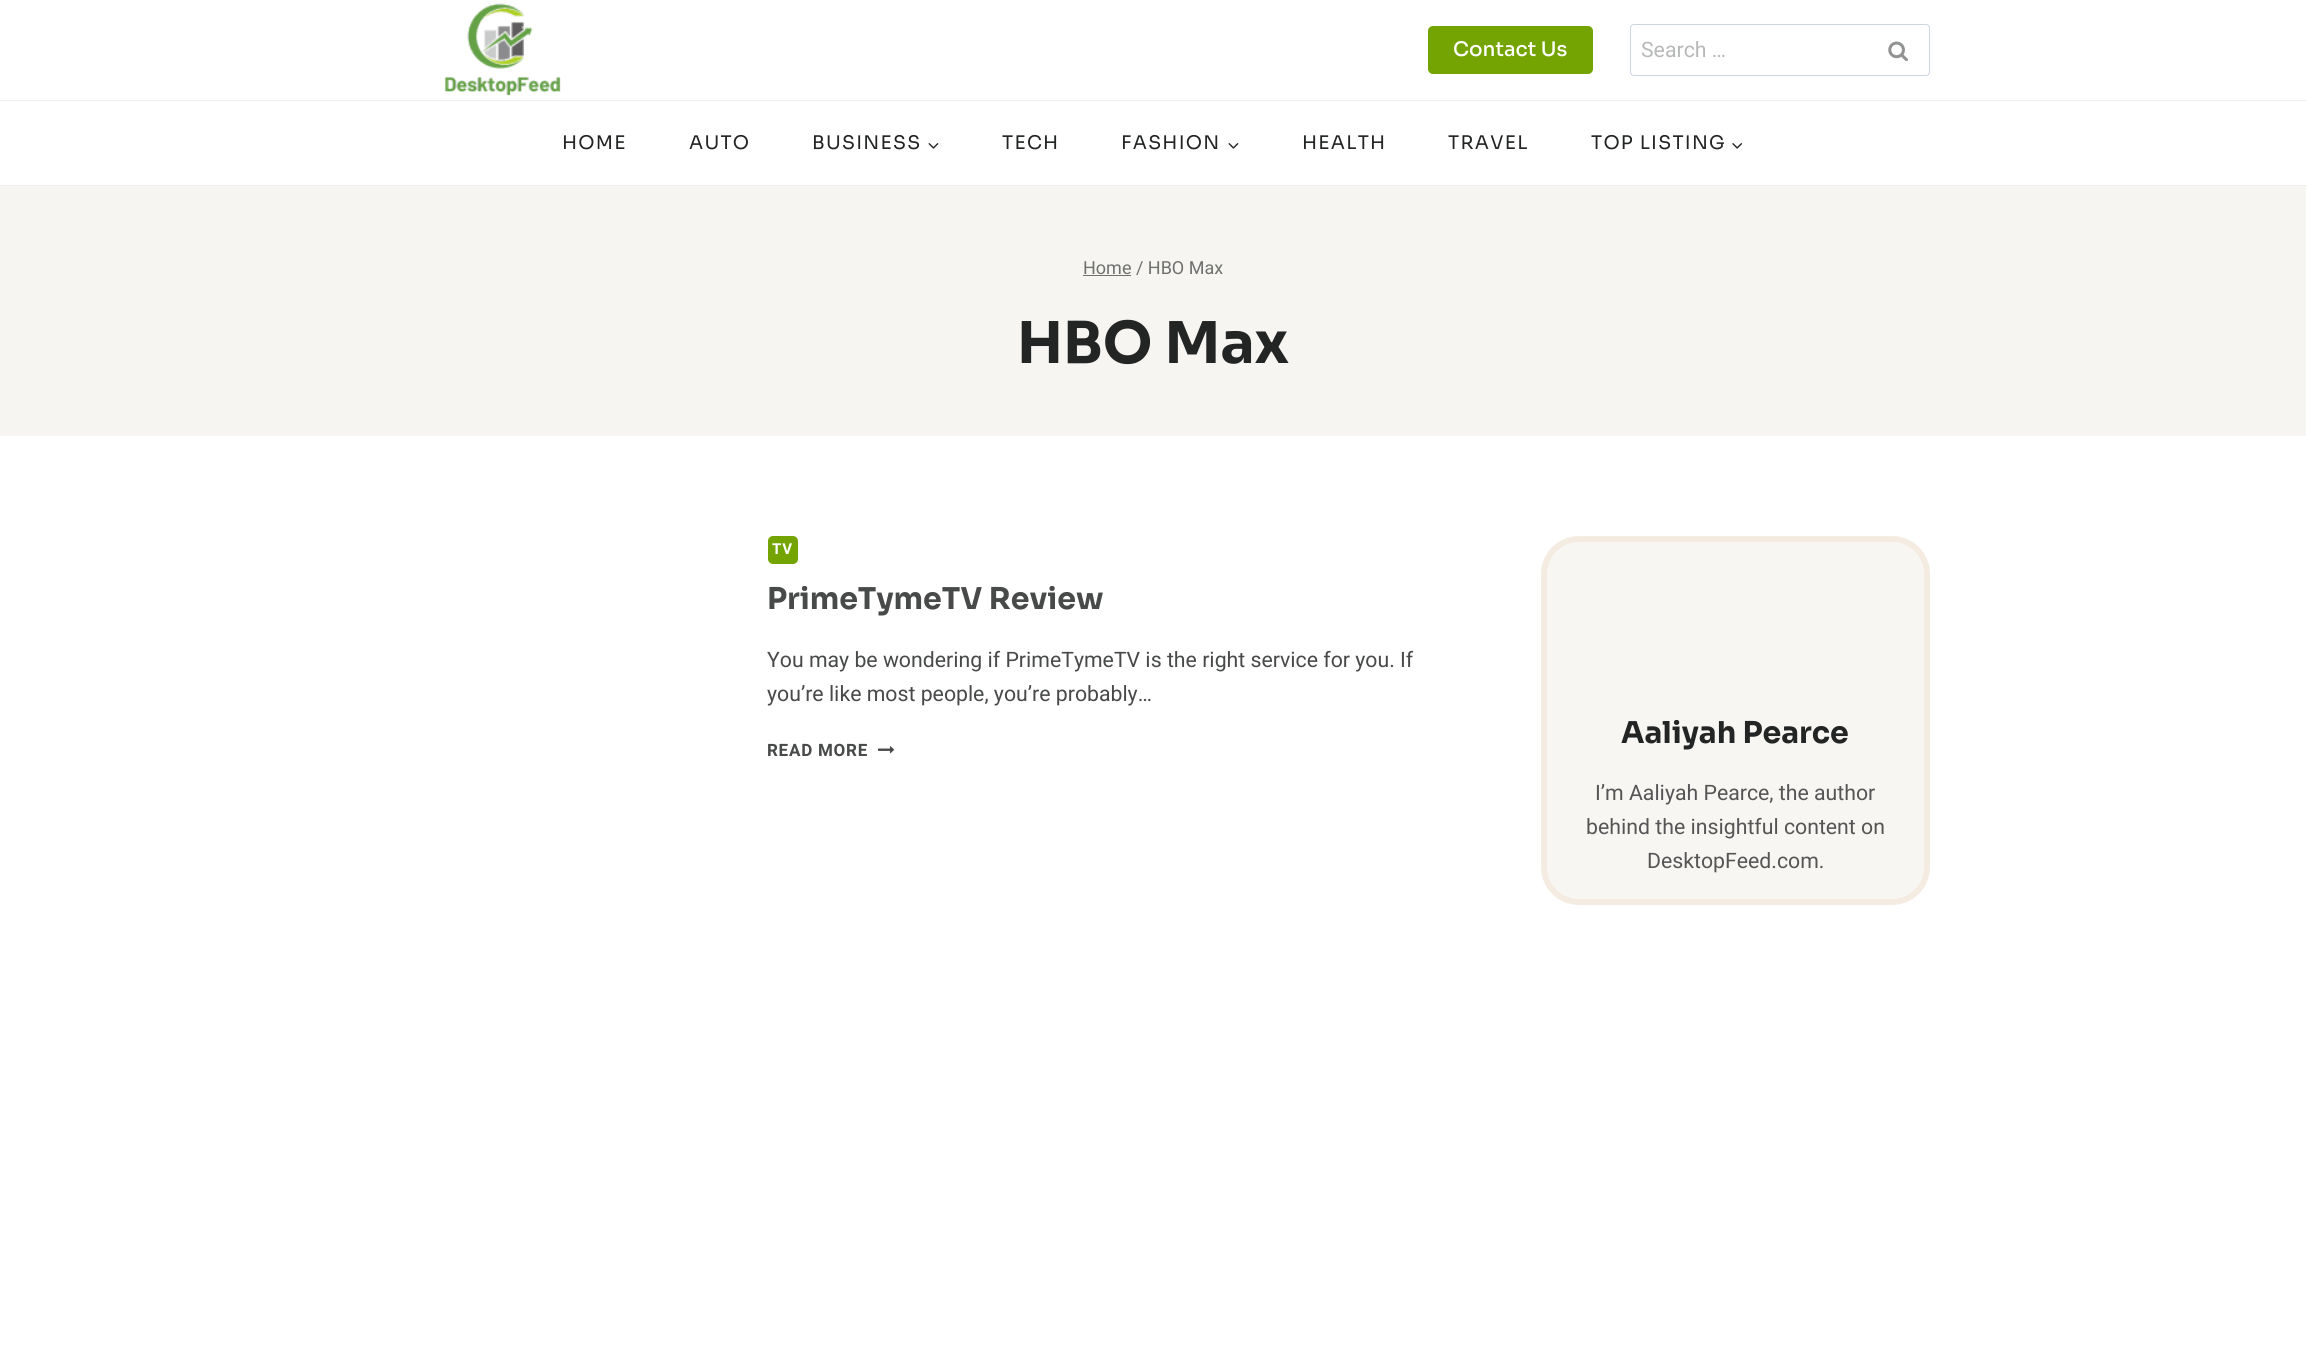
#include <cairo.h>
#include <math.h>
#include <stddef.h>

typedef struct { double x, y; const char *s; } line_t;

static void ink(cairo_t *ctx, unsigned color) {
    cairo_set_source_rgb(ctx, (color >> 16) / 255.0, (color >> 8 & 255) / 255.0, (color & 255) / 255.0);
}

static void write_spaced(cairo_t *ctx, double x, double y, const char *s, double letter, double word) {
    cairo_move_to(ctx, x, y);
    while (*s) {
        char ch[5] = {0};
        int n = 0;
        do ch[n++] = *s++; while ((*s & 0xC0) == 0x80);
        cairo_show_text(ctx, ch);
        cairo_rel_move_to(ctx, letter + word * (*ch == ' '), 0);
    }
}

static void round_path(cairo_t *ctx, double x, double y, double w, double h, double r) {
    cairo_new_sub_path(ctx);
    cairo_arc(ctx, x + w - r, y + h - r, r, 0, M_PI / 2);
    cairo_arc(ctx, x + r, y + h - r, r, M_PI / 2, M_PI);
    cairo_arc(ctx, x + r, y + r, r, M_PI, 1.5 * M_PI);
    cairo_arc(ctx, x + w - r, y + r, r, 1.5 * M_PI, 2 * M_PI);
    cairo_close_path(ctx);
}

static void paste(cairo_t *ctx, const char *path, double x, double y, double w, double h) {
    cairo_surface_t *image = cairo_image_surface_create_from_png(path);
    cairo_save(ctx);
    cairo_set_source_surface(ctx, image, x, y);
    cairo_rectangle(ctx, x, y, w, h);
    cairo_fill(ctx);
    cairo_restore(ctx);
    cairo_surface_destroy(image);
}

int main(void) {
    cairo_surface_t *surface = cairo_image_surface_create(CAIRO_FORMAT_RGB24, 2306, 1353);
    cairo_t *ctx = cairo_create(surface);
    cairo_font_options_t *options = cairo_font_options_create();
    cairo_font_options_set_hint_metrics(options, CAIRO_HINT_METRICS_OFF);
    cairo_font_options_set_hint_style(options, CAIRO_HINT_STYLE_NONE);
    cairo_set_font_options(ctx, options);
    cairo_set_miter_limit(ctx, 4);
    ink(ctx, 0xFFFFFF);
    cairo_paint(ctx);
    paste(ctx, "media/1.png", 444, 3, 117, 93);
    ink(ctx, 0x74A402);
    round_path(ctx, 1428, 26, 165, 48, 5);
    cairo_fill(ctx);
    cairo_select_font_face(ctx, "Sora Medium", CAIRO_FONT_SLANT_NORMAL, CAIRO_FONT_WEIGHT_NORMAL);
    cairo_set_font_size(ctx, 20);
    ink(ctx, 0xFFFFFF);
    cairo_move_to(ctx, 1453, 56);
    cairo_show_text(ctx, "Contact Us");
    round_path(ctx, 1630.5, 24.5, 299, 51, 3.5);
    ink(ctx, 0xCBD5E0);
    cairo_set_line_width(ctx, 1);
    cairo_stroke(ctx);
    cairo_select_font_face(ctx, "Heebo", CAIRO_FONT_SLANT_NORMAL, CAIRO_FONT_WEIGHT_NORMAL);
    cairo_set_font_size(ctx, 21.25);
    ink(ctx, 0xB7B8B8);
    cairo_move_to(ctx, 1641, 57);
    cairo_show_text(ctx, "Search …");
    paste(ctx, "media/2.png", 1888, 41, 20, 20);
    ink(ctx, 0xEEEEEE);
    cairo_rectangle(ctx, 0, 100, 2306, 1);
    cairo_fill(ctx);
    cairo_rectangle(ctx, 0, 185, 2306, 1);
    cairo_fill(ctx);
    cairo_select_font_face(ctx, "Sora", CAIRO_FONT_SLANT_NORMAL, CAIRO_FONT_WEIGHT_NORMAL);
    cairo_set_font_size(ctx, 18.75);
    ink(ctx, 0x232424);
    {
        static const line_t items[] = {
            {562, 149, "HOME"},
            {689, 149, "AUTO"},
            {812, 149, "BUSINESS"},
        };
        for (size_t i = 0; i < sizeof items / sizeof *items; i++) {
            write_spaced(ctx, items[i].x, items[i].y, items[i].s, 1.25, 0);
        }
    }
    paste(ctx, "media/3.png", 928, 143, 11, 6);
    write_spaced(ctx, 1002, 149, "TECH", 1.25, 0);
    write_spaced(ctx, 1121, 149, "FASHION", 1.25, 0);
    paste(ctx, "media/3.png", 1228, 143, 11, 6);
    {
        static const line_t items[] = {
            {1302, 149, "HEALTH"},
            {1448, 149, "TRAVEL"},
            {1591, 149, "TOP LISTING"},
        };
        for (size_t i = 0; i < sizeof items / sizeof *items; i++) {
            write_spaced(ctx, items[i].x, items[i].y, items[i].s, 1.25, 0);
        }
    }
    paste(ctx, "media/4.png", 1732, 143, 11, 6);
    ink(ctx, 0xF7F5F1);
    cairo_rectangle(ctx, 0, 186, 2306, 250);
    cairo_fill(ctx);
    ink(ctx, 0x6F7171);
    cairo_rectangle(ctx, 1083, 275, 48, 1);
    cairo_fill(ctx);
    cairo_select_font_face(ctx, "Heebo", CAIRO_FONT_SLANT_NORMAL, CAIRO_FONT_WEIGHT_NORMAL);
    cairo_set_font_size(ctx, 18);
    cairo_move_to(ctx, 1083, 274);
    cairo_show_text(ctx, "Home / HBO Max");
    cairo_select_font_face(ctx, "Sora", CAIRO_FONT_SLANT_NORMAL, CAIRO_FONT_WEIGHT_BOLD);
    cairo_set_font_size(ctx, 57.5);
    ink(ctx, 0x232424);
    cairo_move_to(ctx, 1017, 363);
    cairo_show_text(ctx, "HBO Max");
    ink(ctx, 0x74A402);
    round_path(ctx, 768, 536, 30, 28, 5);
    cairo_fill(ctx);
    cairo_select_font_face(ctx, "Heebo", CAIRO_FONT_SLANT_NORMAL, CAIRO_FONT_WEIGHT_BOLD);
    cairo_set_font_size(ctx, 15);
    ink(ctx, 0xFFFFFF);
    write_spaced(ctx, 772, 554, "TV", 1, 0);
    cairo_select_font_face(ctx, "Sora", CAIRO_FONT_SLANT_NORMAL, CAIRO_FONT_WEIGHT_BOLD);
    cairo_set_font_size(ctx, 30);
    ink(ctx, 0x484949);
    cairo_move_to(ctx, 767, 609);
    cairo_show_text(ctx, "PrimeTymeTV Review");
    cairo_select_font_face(ctx, "Heebo", CAIRO_FONT_SLANT_NORMAL, CAIRO_FONT_WEIGHT_NORMAL);
    cairo_set_font_size(ctx, 21.25);
    cairo_move_to(ctx, 767, 667);
    cairo_show_text(ctx, "You may be wondering if PrimeTymeTV is the right service for you. If");
    cairo_move_to(ctx, 767, 701);
    cairo_show_text(ctx, "you’re like most people, you’re probably…");
    cairo_select_font_face(ctx, "Heebo", CAIRO_FONT_SLANT_NORMAL, CAIRO_FONT_WEIGHT_BOLD);
    cairo_set_font_size(ctx, 17);
    write_spaced(ctx, 767, 756, "READ MORE", 0.75, 0);
    paste(ctx, "media/5.png", 878, 746, 16, 8);
    ink(ctx, 0xF8F6F3);
    round_path(ctx, 1544, 539, 383, 363, 35);
    cairo_fill_preserve(ctx);
    ink(ctx, 0xF4EBE1);
    cairo_set_line_width(ctx, 6);
    cairo_stroke(ctx);
    cairo_select_font_face(ctx, "Sora", CAIRO_FONT_SLANT_NORMAL, CAIRO_FONT_WEIGHT_BOLD);
    cairo_set_font_size(ctx, 30);
    ink(ctx, 0x232424);
    cairo_move_to(ctx, 1621, 743);
    cairo_show_text(ctx, "Aaliyah Pearce");
    cairo_select_font_face(ctx, "Heebo", CAIRO_FONT_SLANT_NORMAL, CAIRO_FONT_WEIGHT_NORMAL);
    cairo_set_font_size(ctx, 21.25);
    ink(ctx, 0x555555);
    {
        static const line_t items[] = {
            {1595, 800, "I’m Aaliyah Pearce, the author"},
            {1586, 834, "behind the insightful content on"},
            {1647, 868, "DesktopFeed.com."},
        };
        for (size_t i = 0; i < sizeof items / sizeof *items; i++) {
            cairo_move_to(ctx, items[i].x, items[i].y);
            cairo_show_text(ctx, items[i].s);
        }
    }
    cairo_surface_write_to_png(surface, "image.png");
    cairo_font_options_destroy(options);
    cairo_destroy(ctx);
    cairo_surface_destroy(surface);
    return 0;
}
